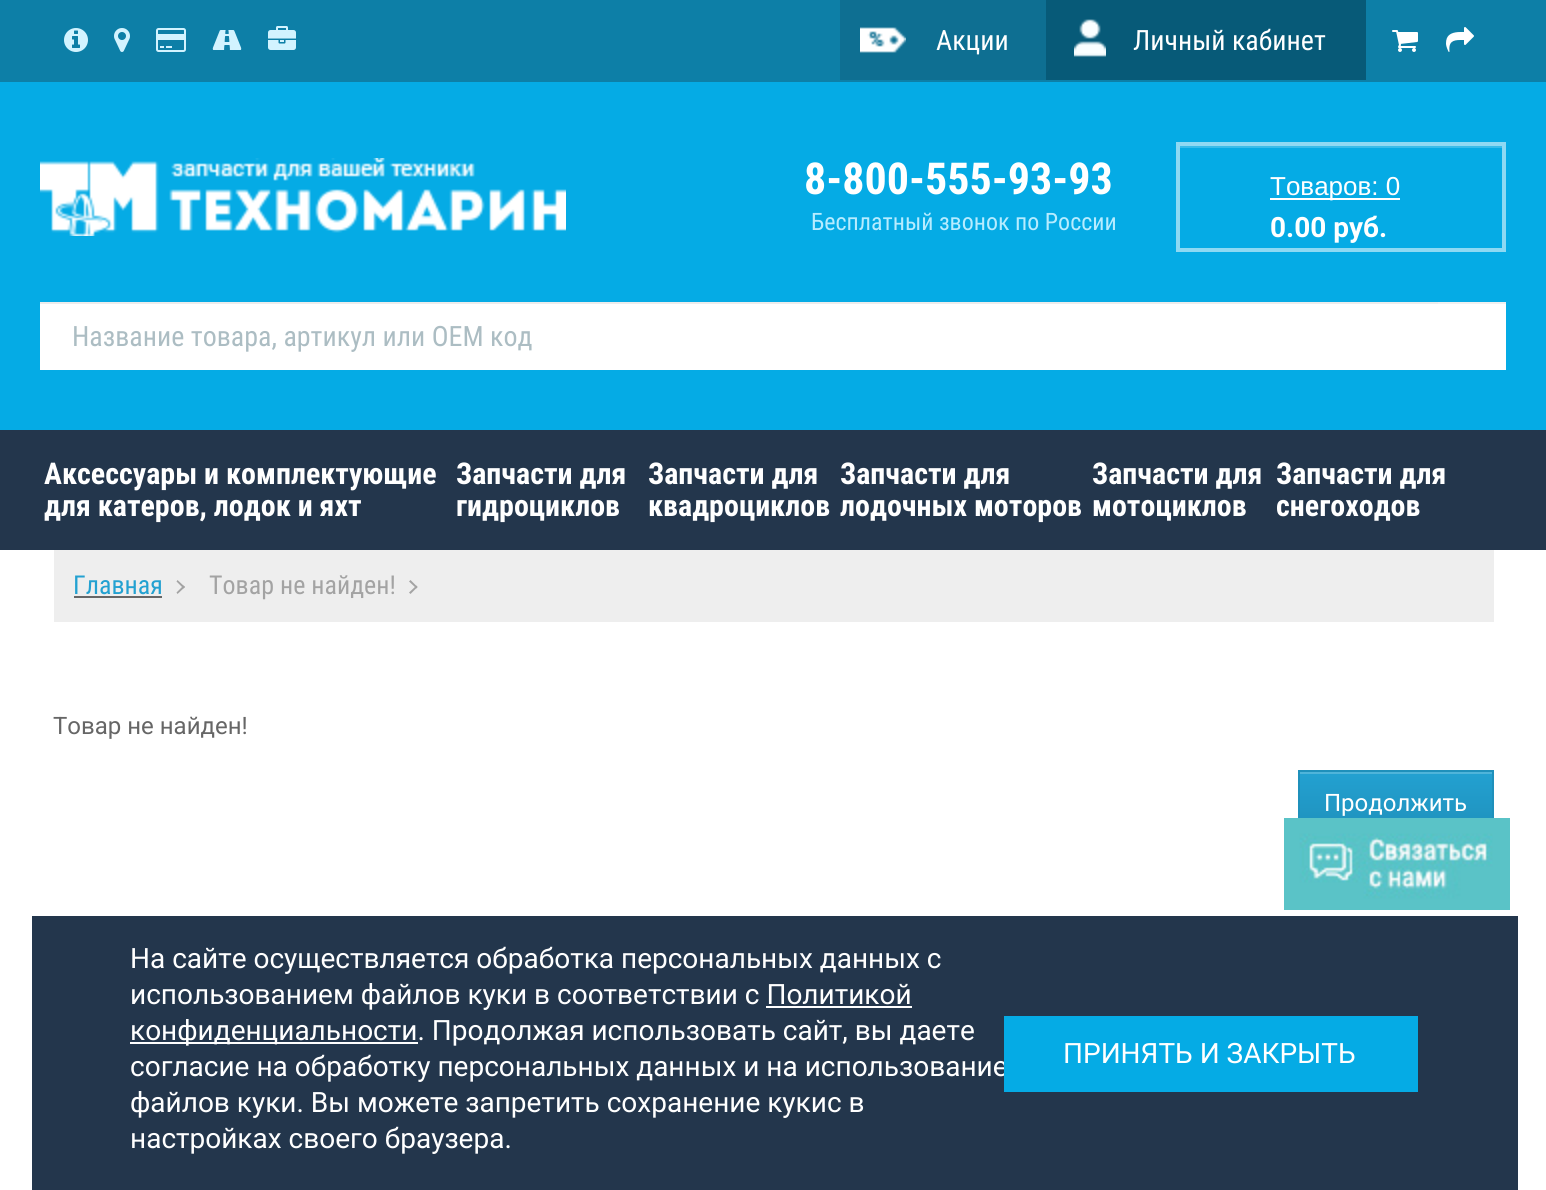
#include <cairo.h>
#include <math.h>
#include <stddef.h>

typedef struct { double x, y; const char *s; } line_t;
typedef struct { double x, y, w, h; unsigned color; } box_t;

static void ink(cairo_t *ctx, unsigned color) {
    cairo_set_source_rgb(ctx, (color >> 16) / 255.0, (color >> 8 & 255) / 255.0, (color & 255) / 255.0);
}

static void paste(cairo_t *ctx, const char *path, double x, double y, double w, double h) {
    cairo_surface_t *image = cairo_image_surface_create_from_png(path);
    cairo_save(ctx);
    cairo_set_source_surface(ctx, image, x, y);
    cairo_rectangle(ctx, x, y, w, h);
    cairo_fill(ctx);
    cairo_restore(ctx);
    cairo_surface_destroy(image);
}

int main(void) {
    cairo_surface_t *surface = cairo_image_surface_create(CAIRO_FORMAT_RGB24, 1546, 1190);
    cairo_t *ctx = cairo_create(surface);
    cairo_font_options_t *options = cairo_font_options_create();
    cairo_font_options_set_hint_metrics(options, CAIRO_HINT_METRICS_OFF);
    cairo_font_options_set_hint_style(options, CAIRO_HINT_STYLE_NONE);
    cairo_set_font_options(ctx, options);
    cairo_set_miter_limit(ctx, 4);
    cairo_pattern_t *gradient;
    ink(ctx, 0xFFFFFF);
    cairo_paint(ctx);
    ink(ctx, 0x0D7FA7);
    cairo_rectangle(ctx, 0, 0, 1546, 82);
    cairo_fill(ctx);
    paste(ctx, "media/1.png", 64, 28, 24, 24);
    paste(ctx, "media/2.png", 114, 28, 16, 24);
    paste(ctx, "media/3.png", 156, 28, 30, 24);
    paste(ctx, "media/4.png", 212, 30, 30, 20);
    paste(ctx, "media/5.png", 268, 26, 28, 24);
    ink(ctx, 0x0E6F92);
    cairo_rectangle(ctx, 840, 0, 206, 80);
    cairo_fill(ctx);
    paste(ctx, "media/6.png", 860, 27, 46, 26);
    cairo_select_font_face(ctx, "Roboto Condensed", CAIRO_FONT_SLANT_NORMAL, CAIRO_FONT_WEIGHT_NORMAL);
    cairo_set_font_size(ctx, 28);
    ink(ctx, 0xFFFFFF);
    cairo_move_to(ctx, 936, 50);
    cairo_show_text(ctx, "Акции");
    ink(ctx, 0x075A78);
    cairo_rectangle(ctx, 1046, 0, 320, 80);
    cairo_fill(ctx);
    paste(ctx, "media/7.png", 1074, 19, 32, 38);
    ink(ctx, 0xFFFFFF);
    cairo_move_to(ctx, 1133, 50);
    cairo_show_text(ctx, "Личный кабинет");
    paste(ctx, "media/8.png", 1392, 30, 26, 22);
    paste(ctx, "media/9.png", 1446, 27, 28, 25);
    ink(ctx, 0x05ABE5);
    cairo_rectangle(ctx, 0, 82, 1546, 348);
    cairo_fill(ctx);
    paste(ctx, "media/10.png", 40, 158, 526, 78);
    cairo_select_font_face(ctx, "Roboto Condensed", CAIRO_FONT_SLANT_NORMAL, CAIRO_FONT_WEIGHT_BOLD);
    cairo_set_font_size(ctx, 44);
    ink(ctx, 0xFFFFFF);
    cairo_move_to(ctx, 804, 194);
    cairo_show_text(ctx, "8-800-555-93-93");
    cairo_select_font_face(ctx, "Roboto Condensed", CAIRO_FONT_SLANT_NORMAL, CAIRO_FONT_WEIGHT_NORMAL);
    cairo_set_font_size(ctx, 24);
    ink(ctx, 0xB7ECFF);
    cairo_move_to(ctx, 811, 230);
    cairo_show_text(ctx, "Бесплатный звонок по России");
    ink(ctx, 0x37BCEA);
    cairo_rectangle(ctx, 1180, 146, 322, 2);
    cairo_fill(ctx);
    cairo_rectangle(ctx, 1178, 144, 326, 106);
    ink(ctx, 0x8ED9F3);
    cairo_set_line_width(ctx, 4);
    cairo_stroke(ctx);
    ink(ctx, 0xFFFFFF);
    cairo_rectangle(ctx, 1270, 198, 130, 2);
    cairo_fill(ctx);
    cairo_select_font_face(ctx, "Liberation Sans", CAIRO_FONT_SLANT_NORMAL, CAIRO_FONT_WEIGHT_NORMAL);
    cairo_set_font_size(ctx, 26);
    cairo_move_to(ctx, 1270, 195);
    cairo_show_text(ctx, "Товаров: 0");
    cairo_select_font_face(ctx, "Roboto", CAIRO_FONT_SLANT_NORMAL, CAIRO_FONT_WEIGHT_BOLD);
    cairo_set_font_size(ctx, 28);
    cairo_move_to(ctx, 1270, 237);
    cairo_show_text(ctx, "0.00 руб.");
    {
        static const box_t items[] = {
            {1438, 302, 68, 2, 0xF0F0F0},
            {40, 304, 1466, 66, 0xFFFFFF},
            {40, 302, 1398, 2, 0xECECEC},
        };
        for (size_t i = 0; i < sizeof items / sizeof *items; i++) {
            ink(ctx, items[i].color);
            cairo_rectangle(ctx, items[i].x, items[i].y, items[i].w, items[i].h);
            cairo_fill(ctx);
        }
    }
    cairo_select_font_face(ctx, "Roboto Condensed", CAIRO_FONT_SLANT_NORMAL, CAIRO_FONT_WEIGHT_NORMAL);
    ink(ctx, 0xACBDC3);
    cairo_move_to(ctx, 72, 346);
    cairo_show_text(ctx, "Название товара, артикул или OEM код");
    ink(ctx, 0x23364C);
    cairo_rectangle(ctx, 0, 430, 1546, 120);
    cairo_fill(ctx);
    cairo_select_font_face(ctx, "Roboto Condensed", CAIRO_FONT_SLANT_NORMAL, CAIRO_FONT_WEIGHT_BOLD);
    cairo_set_font_size(ctx, 30);
    ink(ctx, 0xFFFFFF);
    {
        static const line_t items[] = {
            {44, 484, "Аксессуары и комплектующие"},
            {44, 516, "для катеров, лодок и яхт"},
            {456, 484, "Запчасти для"},
            {456, 516, "гидроциклов"},
            {648, 484, "Запчасти для"},
            {648, 516, "квадроциклов"},
            {840, 484, "Запчасти для"},
            {840, 516, "лодочных моторов"},
            {1092, 484, "Запчасти для"},
            {1092, 516, "мотоциклов"},
            {1276, 484, "Запчасти для"},
            {1276, 516, "снегоходов"},
        };
        for (size_t i = 0; i < sizeof items / sizeof *items; i++) {
            cairo_move_to(ctx, items[i].x, items[i].y);
            cairo_show_text(ctx, items[i].s);
        }
    }
    ink(ctx, 0xEEEEEE);
    cairo_rectangle(ctx, 54, 550, 1440, 72);
    cairo_fill(ctx);
    cairo_select_font_face(ctx, "Roboto Condensed", CAIRO_FONT_SLANT_NORMAL, CAIRO_FONT_WEIGHT_NORMAL);
    cairo_set_font_size(ctx, 26);
    ink(ctx, 0x23A1D1);
    cairo_move_to(ctx, 73, 594);
    cairo_show_text(ctx, "Главная");
    ink(ctx, 0x666666);
    cairo_rectangle(ctx, 74, 596, 88, 2);
    cairo_fill(ctx);
    ink(ctx, 0xA3A3A3);
    cairo_new_path(ctx);
    cairo_move_to(ctx, 176.5, 581.5);
    cairo_line_to(ctx, 177.5, 580);
    cairo_line_to(ctx, 185, 587);
    cairo_line_to(ctx, 183.5, 588.5);
    cairo_close_path(ctx);
    cairo_fill(ctx);
    cairo_new_path(ctx);
    cairo_move_to(ctx, 176.5, 592.5);
    cairo_line_to(ctx, 183.5, 585.5);
    cairo_line_to(ctx, 185, 587);
    cairo_line_to(ctx, 177.5, 594);
    cairo_close_path(ctx);
    cairo_fill(ctx);
    cairo_move_to(ctx, 209, 594);
    cairo_show_text(ctx, "Товар не найден!");
    cairo_new_path(ctx);
    cairo_move_to(ctx, 409, 581.5);
    cairo_line_to(ctx, 410.5, 580);
    cairo_line_to(ctx, 417.5, 587);
    cairo_line_to(ctx, 416.5, 588.5);
    cairo_close_path(ctx);
    cairo_fill(ctx);
    cairo_new_path(ctx);
    cairo_move_to(ctx, 409, 592.5);
    cairo_line_to(ctx, 416.5, 585.5);
    cairo_line_to(ctx, 417.5, 587);
    cairo_line_to(ctx, 410.5, 594);
    cairo_close_path(ctx);
    cairo_fill(ctx);
    cairo_select_font_face(ctx, "Roboto", CAIRO_FONT_SLANT_NORMAL, CAIRO_FONT_WEIGHT_NORMAL);
    cairo_set_font_size(ctx, 24);
    ink(ctx, 0x666666);
    cairo_move_to(ctx, 53, 734);
    cairo_show_text(ctx, "Товар не найден!");
    gradient = cairo_pattern_create_linear(1396, 772, 1396, 836);
    cairo_pattern_add_color_stop_rgba(gradient, 0, 0.137, 0.631, 0.82, 1);
    cairo_pattern_add_color_stop_rgba(gradient, 1, 0.122, 0.565, 0.733, 1);
    cairo_set_source(ctx, gradient);
    cairo_pattern_destroy(gradient);
    cairo_rectangle(ctx, 1300, 774, 192, 44);
    cairo_fill(ctx);
    {
        static const box_t items[] = {
            {1300, 772, 192, 2, 0x4FB4DA},
            {1298, 770, 196, 2, 0x1F90BB},
            {1492, 770, 2, 48, 0x1F90BB},
            {1298, 770, 2, 48, 0x1F90BB},
        };
        for (size_t i = 0; i < sizeof items / sizeof *items; i++) {
            ink(ctx, items[i].color);
            cairo_rectangle(ctx, items[i].x, items[i].y, items[i].w, items[i].h);
            cairo_fill(ctx);
        }
    }
    ink(ctx, 0xFFFFFF);
    cairo_move_to(ctx, 1324, 811);
    cairo_show_text(ctx, "Продолжить");
    paste(ctx, "media/11.png", 1284, 818, 226, 92);
    ink(ctx, 0x23364C);
    cairo_rectangle(ctx, 32, 916, 1486, 274);
    cairo_fill(ctx);
    cairo_set_font_size(ctx, 28);
    ink(ctx, 0xFFFFFF);
    cairo_move_to(ctx, 130, 968);
    cairo_show_text(ctx, "На сайте осуществляется обработка персональных данных с");
    cairo_move_to(ctx, 130, 1004);
    cairo_show_text(ctx, "использованием файлов куки в соответствии с Политикой");
    cairo_rectangle(ctx, 130, 1042, 288, 2);
    cairo_fill(ctx);
    cairo_move_to(ctx, 130, 1040);
    cairo_show_text(ctx, "конфиденциальности. Продолжая использовать сайт, вы даете");
    cairo_rectangle(ctx, 766, 1006, 146, 2);
    cairo_fill(ctx);
    {
        static const line_t items[] = {
            {130, 1076, "согласие на обработку персональных данных и на использование"},
            {130, 1112, "файлов куки. Вы можете запретить сохранение кукис в"},
            {130, 1148, "настройках своего браузера."},
        };
        for (size_t i = 0; i < sizeof items / sizeof *items; i++) {
            cairo_move_to(ctx, items[i].x, items[i].y);
            cairo_show_text(ctx, items[i].s);
        }
    }
    ink(ctx, 0x05ABE5);
    cairo_rectangle(ctx, 1004, 1016, 414, 76);
    cairo_fill(ctx);
    ink(ctx, 0xFFFFFF);
    cairo_move_to(ctx, 1063, 1063);
    cairo_show_text(ctx, "ПРИНЯТЬ И ЗАКРЫТЬ");
    cairo_surface_write_to_png(surface, "image.png");
    cairo_font_options_destroy(options);
    cairo_destroy(ctx);
    cairo_surface_destroy(surface);
    return 0;
}
